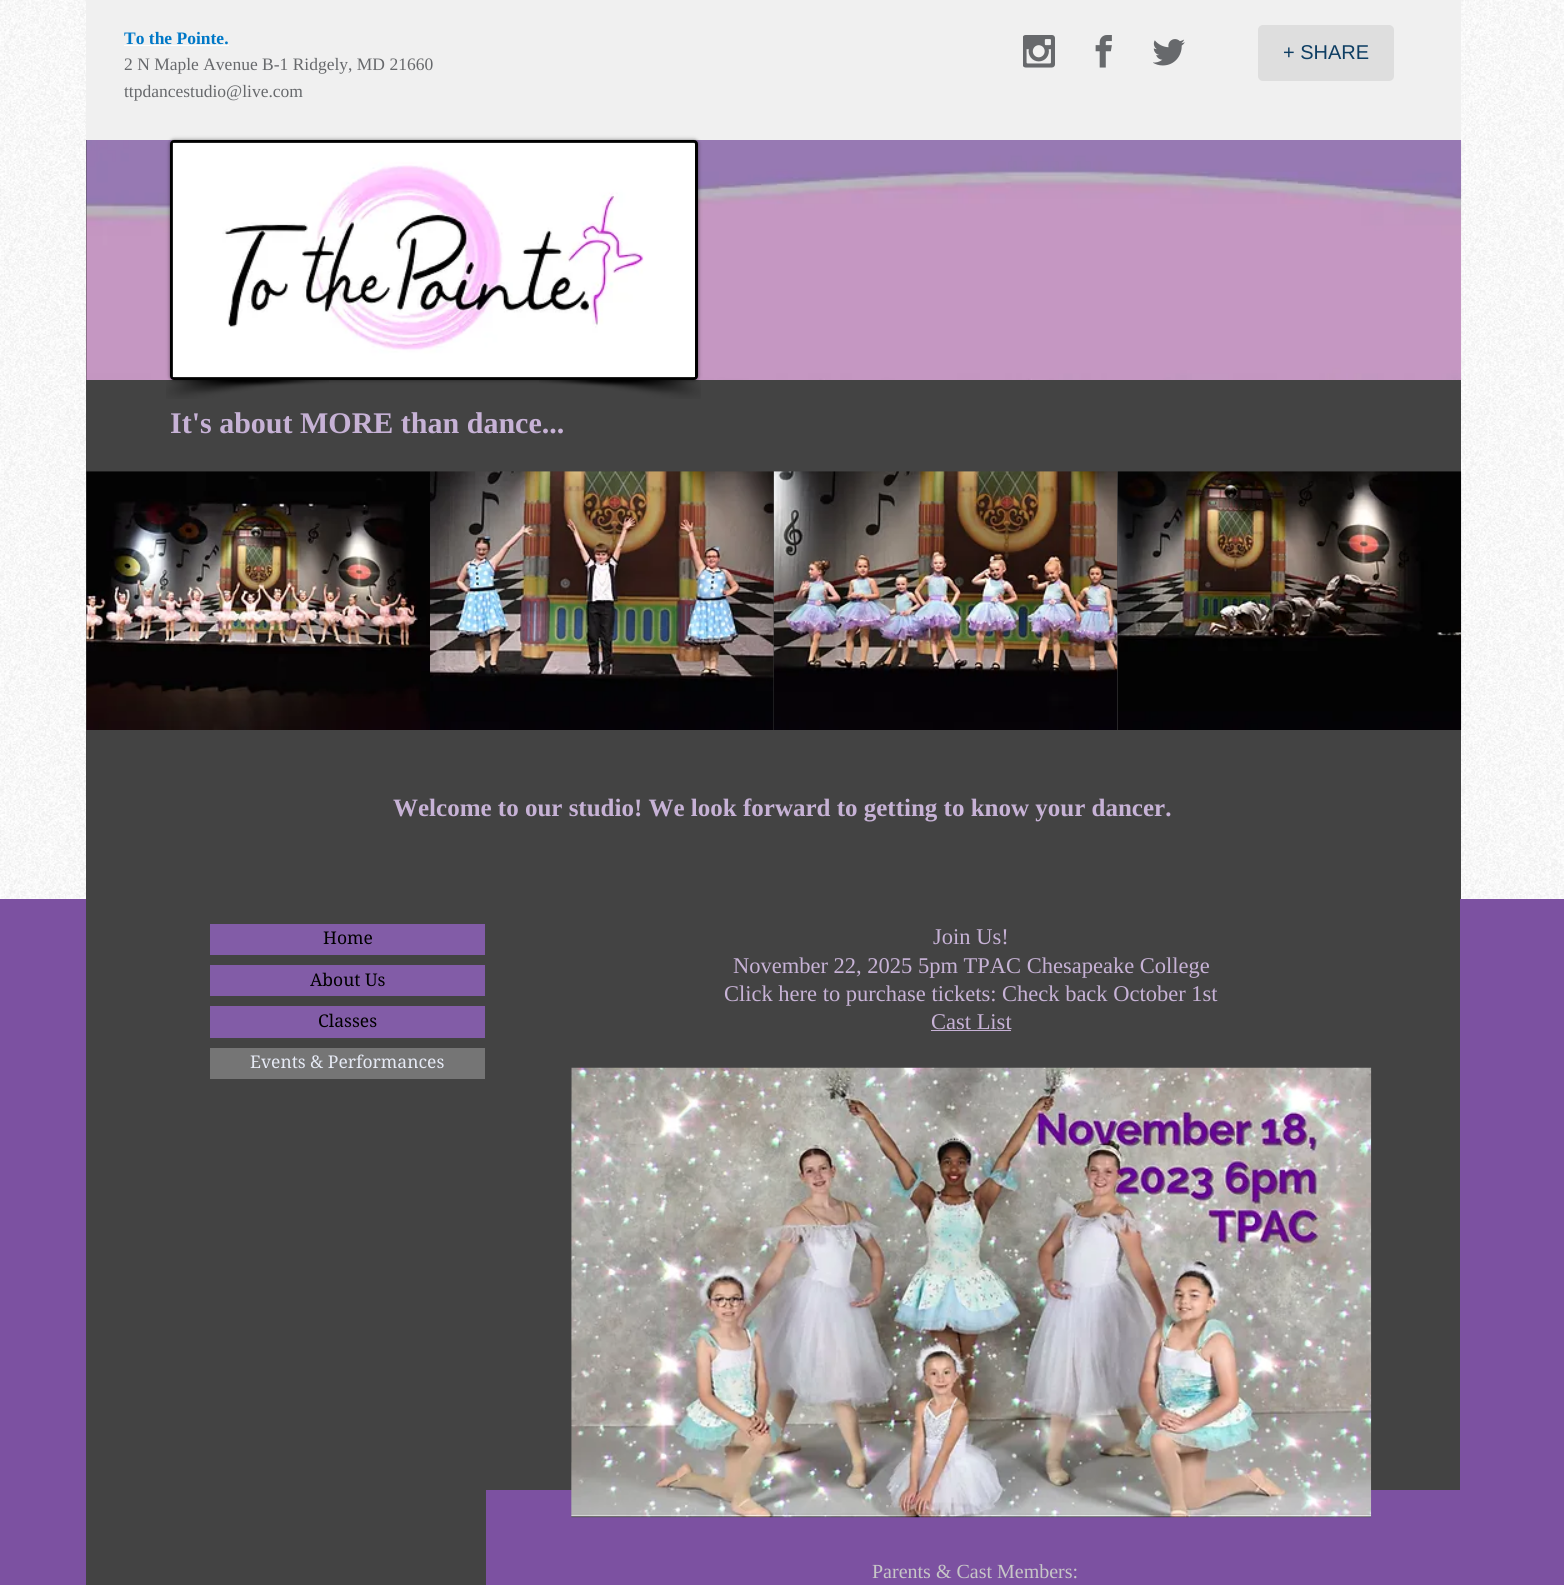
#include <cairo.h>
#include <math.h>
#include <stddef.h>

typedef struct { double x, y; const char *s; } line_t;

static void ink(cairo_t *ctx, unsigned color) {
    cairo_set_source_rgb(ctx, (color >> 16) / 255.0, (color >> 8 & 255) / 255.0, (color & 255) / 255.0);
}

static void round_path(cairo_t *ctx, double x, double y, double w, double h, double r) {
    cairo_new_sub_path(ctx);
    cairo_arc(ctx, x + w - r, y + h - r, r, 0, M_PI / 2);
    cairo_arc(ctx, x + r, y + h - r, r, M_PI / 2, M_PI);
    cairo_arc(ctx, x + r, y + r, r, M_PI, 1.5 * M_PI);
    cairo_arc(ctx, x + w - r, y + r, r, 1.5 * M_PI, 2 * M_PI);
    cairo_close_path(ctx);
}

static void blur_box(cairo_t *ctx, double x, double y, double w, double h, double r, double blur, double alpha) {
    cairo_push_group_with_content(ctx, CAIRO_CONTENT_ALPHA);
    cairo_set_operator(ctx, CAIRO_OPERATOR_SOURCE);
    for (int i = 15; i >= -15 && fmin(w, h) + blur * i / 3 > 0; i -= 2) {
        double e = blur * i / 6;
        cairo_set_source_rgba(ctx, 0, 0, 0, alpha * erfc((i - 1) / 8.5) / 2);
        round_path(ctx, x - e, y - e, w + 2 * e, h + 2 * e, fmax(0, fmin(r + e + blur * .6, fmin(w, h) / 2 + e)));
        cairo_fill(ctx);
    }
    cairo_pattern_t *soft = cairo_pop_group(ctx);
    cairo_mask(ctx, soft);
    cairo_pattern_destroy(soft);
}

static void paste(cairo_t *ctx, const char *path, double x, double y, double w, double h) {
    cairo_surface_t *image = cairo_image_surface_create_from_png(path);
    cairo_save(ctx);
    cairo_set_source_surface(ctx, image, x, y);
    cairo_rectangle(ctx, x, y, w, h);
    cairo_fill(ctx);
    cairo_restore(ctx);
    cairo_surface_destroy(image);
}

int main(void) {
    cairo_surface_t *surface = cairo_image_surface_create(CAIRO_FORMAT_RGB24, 1564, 1585);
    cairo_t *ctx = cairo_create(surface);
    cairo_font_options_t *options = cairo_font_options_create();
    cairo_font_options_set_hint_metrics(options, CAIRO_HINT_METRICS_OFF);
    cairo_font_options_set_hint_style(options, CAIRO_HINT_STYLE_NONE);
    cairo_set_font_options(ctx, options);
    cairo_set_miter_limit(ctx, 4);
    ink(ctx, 0x7C51A1);
    cairo_paint(ctx);
    ink(ctx, 0xFFFFFF);
    cairo_rectangle(ctx, 0, 0, 1564, 899);
    cairo_fill(ctx);
    paste(ctx, "media/1.png", 0, 0, 1564, 899);
    ink(ctx, 0xF0F0F0);
    cairo_rectangle(ctx, 86, 0, 1375, 140);
    cairo_fill(ctx);
    cairo_select_font_face(ctx, "Liberation Serif", CAIRO_FONT_SLANT_NORMAL, CAIRO_FONT_WEIGHT_BOLD);
    cairo_set_font_size(ctx, 17.5);
    ink(ctx, 0x0078C7);
    cairo_move_to(ctx, 124, 44);
    cairo_show_text(ctx, "To the Pointe.");
    ink(ctx, 0xFFFFFF);
    cairo_rectangle(ctx, 124, 45, 105, 1);
    cairo_fill(ctx);
    cairo_select_font_face(ctx, "Liberation Serif", CAIRO_FONT_SLANT_NORMAL, CAIRO_FONT_WEIGHT_NORMAL);
    ink(ctx, 0x67696C);
    cairo_move_to(ctx, 124, 70);
    cairo_show_text(ctx, "2 N Maple Avenue B-1 Ridgely, MD 21660");
    cairo_move_to(ctx, 124, 97);
    cairo_show_text(ctx, "ttpdancestudio@live.com");
    paste(ctx, "media/2.png", 1023, 35, 32, 33);
    paste(ctx, "media/3.png", 1095, 35, 17, 33);
    paste(ctx, "media/4.png", 1153, 39, 32, 27);
    ink(ctx, 0xDEDEDE);
    round_path(ctx, 1258, 25, 136, 56, 5);
    cairo_fill(ctx);
    cairo_select_font_face(ctx, "Liberation Sans", CAIRO_FONT_SLANT_NORMAL, CAIRO_FONT_WEIGHT_NORMAL);
    cairo_set_font_size(ctx, 20);
    ink(ctx, 0x0E3E63);
    cairo_move_to(ctx, 1283, 59);
    cairo_show_text(ctx, "+ SHARE");
    ink(ctx, 0x434343);
    cairo_rectangle(ctx, 86, 140, 1375, 759);
    cairo_fill(ctx);
    paste(ctx, "media/8.png", 86, 140, 1376, 240);
    ink(ctx, 0x000000);
    blur_box(ctx, 170, 140, 528, 240, 4, 2, 0.5);
    round_path(ctx, 171.5, 141.5, 525, 237, 2.5);
    ink(ctx, 0x000000);
    cairo_set_line_width(ctx, 3);
    cairo_stroke(ctx);
    paste(ctx, "media/5.png", 172, 142, 523, 236);
    paste(ctx, "media/6.png", 166, 380, 163, 19);
    paste(ctx, "media/7.png", 539, 380, 162, 19);
    cairo_select_font_face(ctx, "Liberation Serif", CAIRO_FONT_SLANT_NORMAL, CAIRO_FONT_WEIGHT_BOLD);
    cairo_set_font_size(ctx, 30);
    ink(ctx, 0xC7B2D6);
    cairo_move_to(ctx, 170, 433);
    cairo_show_text(ctx, "It's about MORE than dance...");
    paste(ctx, "media/9.png", 86, 471, 344, 259);
    paste(ctx, "media/10.png", 430, 471, 344, 259);
    paste(ctx, "media/11.png", 773, 471, 345, 259);
    paste(ctx, "media/12.png", 1117, 471, 345, 259);
    cairo_set_font_size(ctx, 25);
    cairo_move_to(ctx, 393, 816);
    cairo_show_text(ctx, "Welcome to our studio! We look forward to getting to know your dancer.");
    ink(ctx, 0x434343);
    cairo_rectangle(ctx, 86, 899, 400, 686);
    cairo_fill(ctx);
    ink(ctx, 0x825CA7);
    cairo_rectangle(ctx, 210, 924, 275, 31);
    cairo_fill(ctx);
    cairo_select_font_face(ctx, "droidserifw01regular", CAIRO_FONT_SLANT_NORMAL, CAIRO_FONT_WEIGHT_NORMAL);
    cairo_set_font_size(ctx, 17.5);
    ink(ctx, 0x000000);
    cairo_move_to(ctx, 323, 944);
    cairo_show_text(ctx, "Home");
    ink(ctx, 0x825CA7);
    cairo_rectangle(ctx, 210, 965, 275, 31);
    cairo_fill(ctx);
    ink(ctx, 0x000000);
    cairo_move_to(ctx, 310, 986);
    cairo_show_text(ctx, "About Us");
    ink(ctx, 0x825CA7);
    cairo_rectangle(ctx, 210, 1006, 275, 32);
    cairo_fill(ctx);
    ink(ctx, 0x000000);
    cairo_move_to(ctx, 318, 1027);
    cairo_show_text(ctx, "Classes");
    ink(ctx, 0x757575);
    cairo_rectangle(ctx, 210, 1048, 275, 31);
    cairo_fill(ctx);
    ink(ctx, 0xE6EAF5);
    cairo_move_to(ctx, 250, 1068);
    cairo_show_text(ctx, "Events & Performances");
    ink(ctx, 0x434343);
    cairo_rectangle(ctx, 486, 899, 974, 591);
    cairo_fill(ctx);
    cairo_select_font_face(ctx, "Liberation Serif", CAIRO_FONT_SLANT_NORMAL, CAIRO_FONT_WEIGHT_NORMAL);
    cairo_set_font_size(ctx, 22.5);
    ink(ctx, 0xC7B2D6);
    {
        static const line_t items[] = {
            {933, 944, "Join Us!"},
            {733, 973, "November 22, 2025 5pm TPAC Chesapeake College"},
            {724, 1001, "Click here to purchase tickets: Check back October 1st"},
            {931, 1029, "Cast List"},
        };
        for (size_t i = 0; i < sizeof items / sizeof *items; i++) {
            cairo_move_to(ctx, items[i].x, items[i].y);
            cairo_show_text(ctx, items[i].s);
        }
    }
    cairo_rectangle(ctx, 931, 1030, 80, 1);
    cairo_fill(ctx);
    paste(ctx, "media/13.png", 571, 1067, 801, 451);
    cairo_set_font_size(ctx, 20);
    ink(ctx, 0xC7C7C7);
    cairo_move_to(ctx, 872, 1578);
    cairo_show_text(ctx, "Parents & Cast Members:");
    cairo_surface_write_to_png(surface, "image.png");
    cairo_font_options_destroy(options);
    cairo_destroy(ctx);
    cairo_surface_destroy(surface);
    return 0;
}
